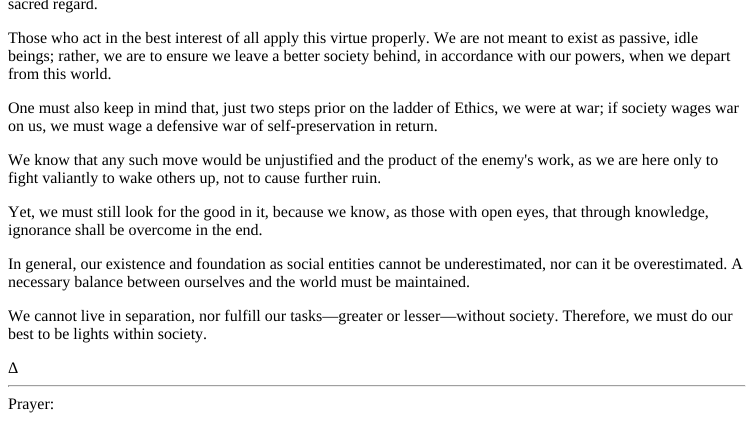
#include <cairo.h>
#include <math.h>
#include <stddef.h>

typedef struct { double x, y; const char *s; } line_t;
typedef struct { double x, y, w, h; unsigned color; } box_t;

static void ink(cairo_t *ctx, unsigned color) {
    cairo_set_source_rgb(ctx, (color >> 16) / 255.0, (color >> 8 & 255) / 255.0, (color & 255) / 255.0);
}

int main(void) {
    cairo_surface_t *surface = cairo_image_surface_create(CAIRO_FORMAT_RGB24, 754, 421);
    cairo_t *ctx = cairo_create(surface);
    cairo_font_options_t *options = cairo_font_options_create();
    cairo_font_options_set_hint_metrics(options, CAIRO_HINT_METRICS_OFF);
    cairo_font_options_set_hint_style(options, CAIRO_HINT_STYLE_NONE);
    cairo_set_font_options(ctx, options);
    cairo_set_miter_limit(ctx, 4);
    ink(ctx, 0xFFFFFF);
    cairo_paint(ctx);
    cairo_select_font_face(ctx, "Liberation Serif", CAIRO_FONT_SLANT_NORMAL, CAIRO_FONT_WEIGHT_NORMAL);
    cairo_set_font_size(ctx, 16);
    ink(ctx, 0x000000);
    {
        static const line_t items[] = {
            {8, 9, "sacred regard."},
            {8, 43, "Those who act in the best interest of all apply this virtue properly. We are not meant to exist as passive, idle"},
            {8, 61, "beings; rather, we are to ensure we leave a better society behind, in accordance with our powers, when we depart"},
            {8, 79, "from this world."},
            {8, 113, "One must also keep in mind that, just two steps prior on the ladder of Ethics, we were at war; if society wages war"},
            {8, 131, "on us, we must wage a defensive war of self-preservation in return."},
            {8, 165, "We know that any such move would be unjustified and the product of the enemy's work, as we are here only to"},
            {8, 183, "fight valiantly to wake others up, not to cause further ruin."},
            {8, 217, "Yet, we must still look for the good in it, because we know, as those with open eyes, that through knowledge,"},
            {8, 235, "ignorance shall be overcome in the end."},
            {8, 269, "In general, our existence and foundation as social entities cannot be underestimated, nor can it be overestimated. A"},
            {8, 287, "necessary balance between ourselves and the world must be maintained."},
            {8, 321, "We cannot live in separation, nor fulfill our tasks—greater or lesser—without society. Therefore, we must do our"},
            {8, 339, "best to be lights within society."},
            {8, 373, "Δ"},
        };
        for (size_t i = 0; i < sizeof items / sizeof *items; i++) {
            cairo_move_to(ctx, items[i].x, items[i].y);
            cairo_show_text(ctx, items[i].s);
        }
    }
    {
        static const box_t items[] = {
            {8, 385, 738, 1, 0x9F9F9F},
            {745, 385, 1, 2, 0xEEEEEE},
            {8, 386, 738, 1, 0xEEEEEE},
            {8, 385, 1, 2, 0x9F9F9F},
        };
        for (size_t i = 0; i < sizeof items / sizeof *items; i++) {
            ink(ctx, items[i].color);
            cairo_rectangle(ctx, items[i].x, items[i].y, items[i].w, items[i].h);
            cairo_fill(ctx);
        }
    }
    ink(ctx, 0x000000);
    cairo_move_to(ctx, 8, 409);
    cairo_show_text(ctx, "Prayer:");
    cairo_surface_write_to_png(surface, "image.png");
    cairo_font_options_destroy(options);
    cairo_destroy(ctx);
    cairo_surface_destroy(surface);
    return 0;
}
